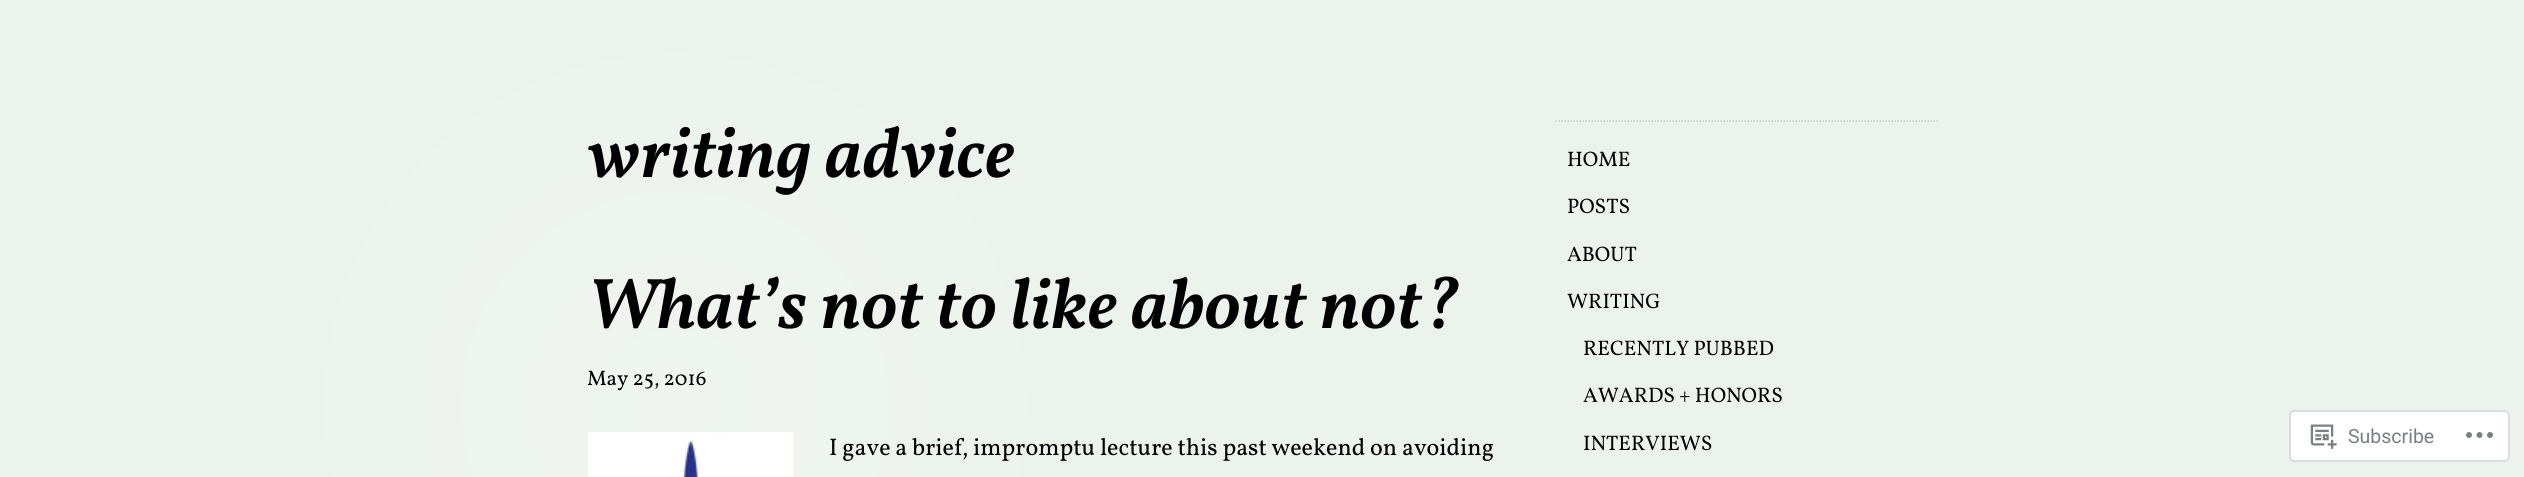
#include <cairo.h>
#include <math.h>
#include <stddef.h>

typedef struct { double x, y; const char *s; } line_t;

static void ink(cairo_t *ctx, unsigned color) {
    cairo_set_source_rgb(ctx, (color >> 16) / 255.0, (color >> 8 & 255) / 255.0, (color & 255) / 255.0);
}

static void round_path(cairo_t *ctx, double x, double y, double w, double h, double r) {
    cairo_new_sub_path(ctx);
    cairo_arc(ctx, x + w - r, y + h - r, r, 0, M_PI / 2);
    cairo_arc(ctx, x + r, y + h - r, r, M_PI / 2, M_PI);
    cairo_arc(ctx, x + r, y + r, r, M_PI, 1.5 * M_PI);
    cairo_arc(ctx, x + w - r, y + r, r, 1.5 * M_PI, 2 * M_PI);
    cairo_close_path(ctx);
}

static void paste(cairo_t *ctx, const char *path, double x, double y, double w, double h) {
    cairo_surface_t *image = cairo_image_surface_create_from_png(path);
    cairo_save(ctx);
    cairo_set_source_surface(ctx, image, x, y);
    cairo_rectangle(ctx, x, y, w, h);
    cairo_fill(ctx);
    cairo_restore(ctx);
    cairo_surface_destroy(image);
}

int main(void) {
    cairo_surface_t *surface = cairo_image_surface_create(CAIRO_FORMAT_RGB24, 2524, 477);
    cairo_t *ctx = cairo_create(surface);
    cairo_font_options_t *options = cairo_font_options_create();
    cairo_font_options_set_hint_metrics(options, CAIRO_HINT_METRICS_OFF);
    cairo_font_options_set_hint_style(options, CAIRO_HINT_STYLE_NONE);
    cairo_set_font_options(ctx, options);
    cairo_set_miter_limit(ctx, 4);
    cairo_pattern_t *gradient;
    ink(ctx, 0xFFFFFF);
    cairo_paint(ctx);
    gradient = cairo_pattern_create_radial(675, 405, 0, 675, 405, 420);
    cairo_pattern_add_color_stop_rgba(gradient, 0, 0.941, 0.961, 0.941, 1);
    cairo_pattern_add_color_stop_rgba(gradient, 1, 0.925, 0.949, 0.925, 1);
    cairo_set_source(ctx, gradient);
    cairo_pattern_destroy(gradient);
    cairo_rectangle(ctx, 0, 0, 2524, 477);
    cairo_fill(ctx);
    cairo_select_font_face(ctx, "Vollkorn SemiBold", CAIRO_FONT_SLANT_ITALIC, CAIRO_FONT_WEIGHT_NORMAL);
    cairo_set_font_size(ctx, 72);
    ink(ctx, 0x000000);
    cairo_move_to(ctx, 587, 177);
    cairo_show_text(ctx, "writing advice");
    cairo_move_to(ctx, 587, 328);
    cairo_show_text(ctx, "What’s not to like about not?");
    cairo_select_font_face(ctx, "Vollkorn", CAIRO_FONT_SLANT_NORMAL, CAIRO_FONT_WEIGHT_NORMAL);
    cairo_set_font_size(ctx, 21);
    cairo_move_to(ctx, 587, 385);
    cairo_show_text(ctx, "May 25, 2016");
    paste(ctx, "media/1.png", 588, 432, 206, 45);
    cairo_set_font_size(ctx, 24);
    cairo_move_to(ctx, 829, 455);
    cairo_show_text(ctx, "I gave a brief, impromptu lecture this past weekend on avoiding");
    cairo_new_path(ctx);
    cairo_move_to(ctx, 1555.5, 121);
    cairo_line_to(ctx, 1938, 121);
    ink(ctx, 0xC8CDC8);
    cairo_set_line_width(ctx, 1.5);
    cairo_set_dash(ctx, (double[]){1.5, 1.5}, 2, 0);
    cairo_stroke(ctx);
    cairo_set_font_size(ctx, 21);
    ink(ctx, 0x000000);
    {
        static const line_t items[] = {
            {1567, 166, "HOME"},
            {1567, 213, "POSTS"},
            {1567, 261, "ABOUT"},
            {1567, 308, "WRITING"},
            {1583, 355, "RECENTLY PUBBED"},
            {1583, 402, "AWARDS + HONORS"},
            {1583, 450, "INTERVIEWS"},
        };
        for (size_t i = 0; i < sizeof items / sizeof *items; i++) {
            cairo_move_to(ctx, items[i].x, items[i].y);
            cairo_show_text(ctx, items[i].s);
        }
    }
    ink(ctx, 0xFFFFFF);
    round_path(ctx, 2290, 411, 219, 50, 4);
    cairo_fill_preserve(ctx);
    ink(ctx, 0xDCDCDE);
    cairo_set_line_width(ctx, 2);
    cairo_set_dash(ctx, NULL, 0, 0);
    cairo_stroke(ctx);
    paste(ctx, "media/2.png", 2310, 424, 27, 25);
    cairo_select_font_face(ctx, "Roboto", CAIRO_FONT_SLANT_NORMAL, CAIRO_FONT_WEIGHT_NORMAL);
    cairo_set_font_size(ctx, 19.5);
    ink(ctx, 0x7A7E84);
    cairo_move_to(ctx, 2348, 443);
    cairo_show_text(ctx, "Subscribe");
    paste(ctx, "media/3.png", 2466, 432, 27, 6);
    cairo_surface_write_to_png(surface, "image.png");
    cairo_font_options_destroy(options);
    cairo_destroy(ctx);
    cairo_surface_destroy(surface);
    return 0;
}
